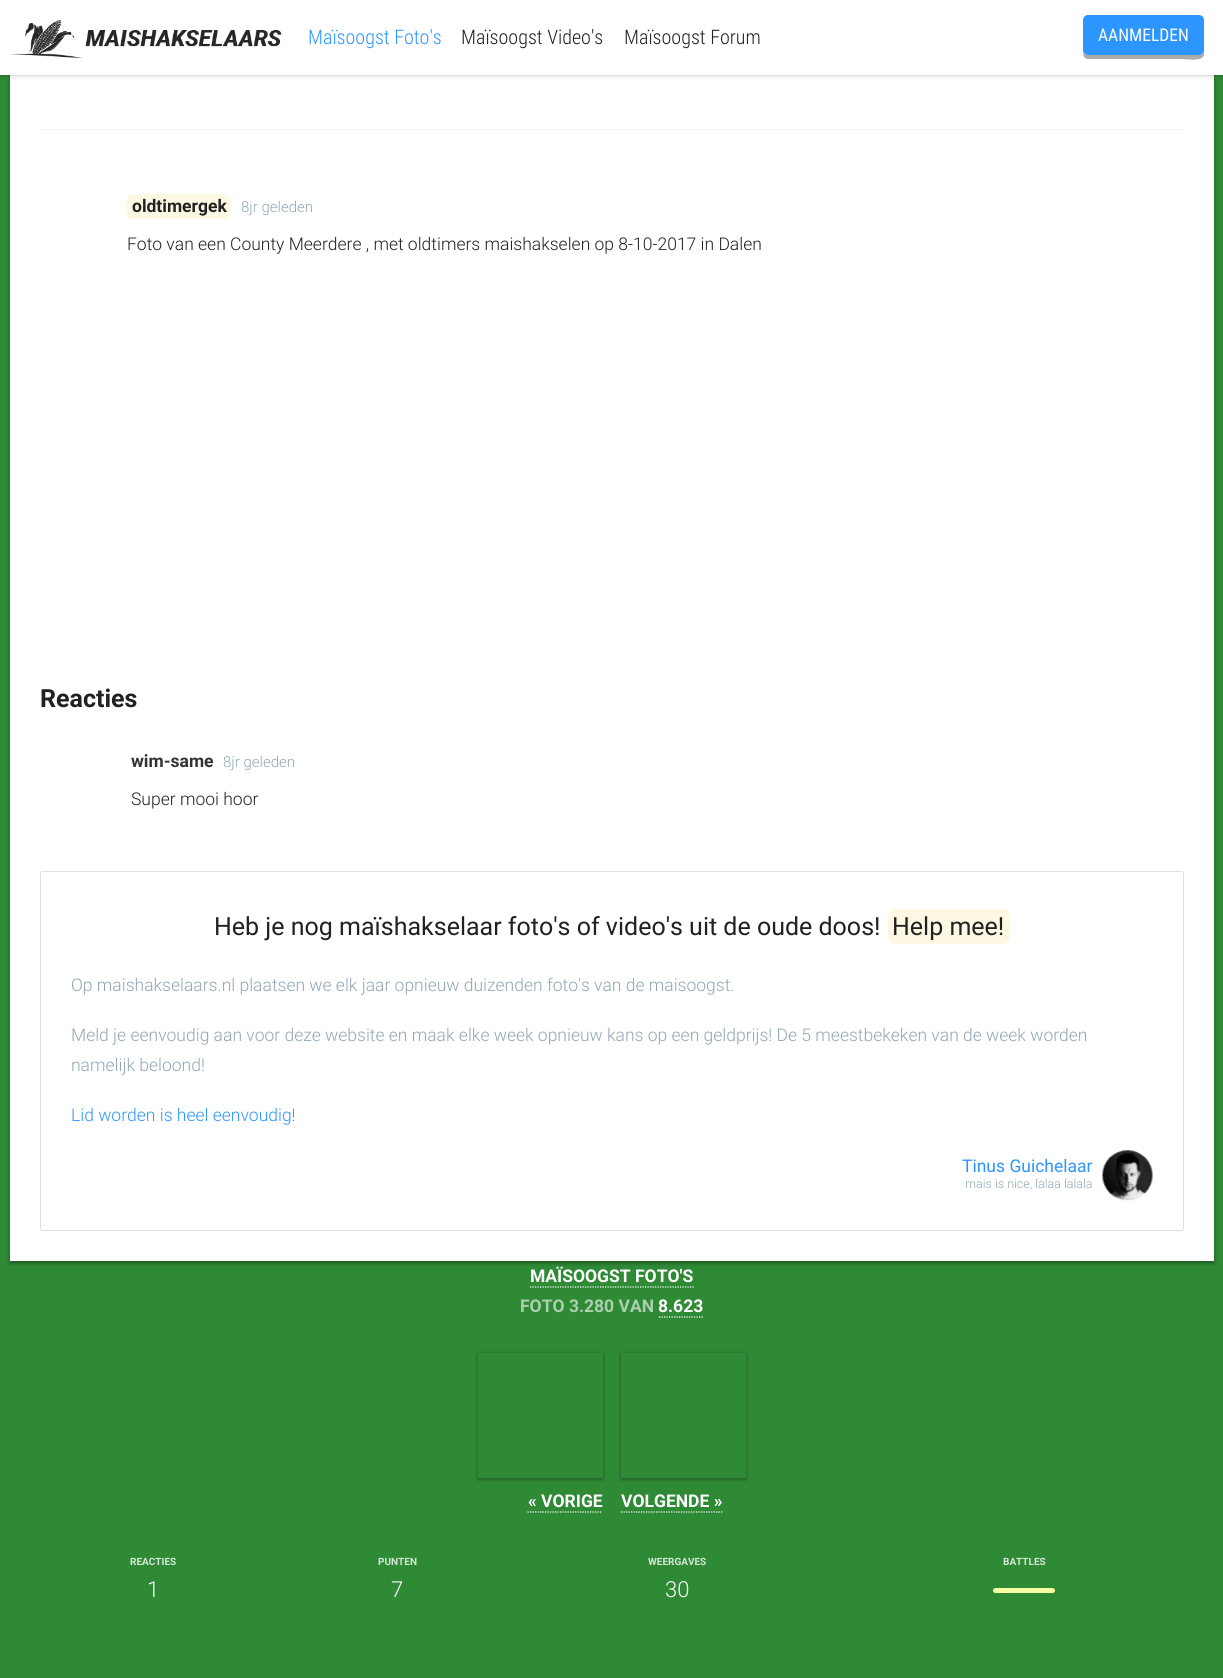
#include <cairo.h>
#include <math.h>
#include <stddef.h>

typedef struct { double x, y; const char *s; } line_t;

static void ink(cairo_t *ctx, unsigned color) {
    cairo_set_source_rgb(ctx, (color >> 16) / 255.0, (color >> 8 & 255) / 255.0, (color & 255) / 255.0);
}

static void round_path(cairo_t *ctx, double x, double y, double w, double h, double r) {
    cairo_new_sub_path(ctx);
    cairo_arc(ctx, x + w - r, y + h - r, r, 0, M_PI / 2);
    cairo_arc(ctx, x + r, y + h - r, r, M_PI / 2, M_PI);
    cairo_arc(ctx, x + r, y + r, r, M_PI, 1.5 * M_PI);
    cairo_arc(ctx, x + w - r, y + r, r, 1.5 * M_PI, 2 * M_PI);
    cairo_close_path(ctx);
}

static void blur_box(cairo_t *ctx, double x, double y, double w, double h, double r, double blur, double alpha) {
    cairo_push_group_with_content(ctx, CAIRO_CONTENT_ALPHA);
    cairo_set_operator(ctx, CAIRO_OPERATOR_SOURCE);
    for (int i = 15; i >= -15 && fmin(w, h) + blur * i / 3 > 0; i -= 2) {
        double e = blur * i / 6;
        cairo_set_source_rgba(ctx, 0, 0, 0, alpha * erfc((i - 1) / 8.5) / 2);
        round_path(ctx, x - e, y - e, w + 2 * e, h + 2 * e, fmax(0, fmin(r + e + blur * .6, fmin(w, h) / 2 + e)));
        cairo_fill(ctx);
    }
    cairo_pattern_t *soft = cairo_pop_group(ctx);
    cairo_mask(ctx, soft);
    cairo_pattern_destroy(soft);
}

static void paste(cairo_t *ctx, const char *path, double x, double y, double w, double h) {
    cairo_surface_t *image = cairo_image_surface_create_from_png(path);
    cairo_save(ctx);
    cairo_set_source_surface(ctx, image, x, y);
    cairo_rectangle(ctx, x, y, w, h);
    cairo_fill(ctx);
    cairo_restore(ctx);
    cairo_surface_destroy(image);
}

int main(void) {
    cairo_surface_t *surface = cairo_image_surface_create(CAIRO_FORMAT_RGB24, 1223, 1678);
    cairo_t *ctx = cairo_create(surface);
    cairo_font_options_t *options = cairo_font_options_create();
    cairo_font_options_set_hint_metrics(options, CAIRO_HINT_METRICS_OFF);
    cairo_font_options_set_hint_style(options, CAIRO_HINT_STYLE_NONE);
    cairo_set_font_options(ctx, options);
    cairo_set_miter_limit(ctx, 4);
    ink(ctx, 0x2F8A36);
    cairo_paint(ctx);
    ink(ctx, 0x000000);
    blur_box(ctx, 10, -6, 1204, 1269, 0, 2, 0.4);
    ink(ctx, 0xFFFFFF);
    cairo_rectangle(ctx, 10, 75, 1204, 1186);
    cairo_fill(ctx);
    ink(ctx, 0x000000);
    blur_box(ctx, 0, 1, 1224, 75, 0, 2, 0.2);
    ink(ctx, 0xFFFFFF);
    cairo_rectangle(ctx, 0, 0, 1223, 75);
    cairo_fill(ctx);
    paste(ctx, "media/1.png", 10, 20, 272, 39);
    cairo_select_font_face(ctx, "Roboto Condensed Light", CAIRO_FONT_SLANT_NORMAL, CAIRO_FONT_WEIGHT_NORMAL);
    cairo_set_font_size(ctx, 20);
    ink(ctx, 0x2D95FF);
    cairo_move_to(ctx, 308, 44);
    cairo_show_text(ctx, "Maïsoogst Foto's");
    ink(ctx, 0x212121);
    cairo_move_to(ctx, 461, 44);
    cairo_show_text(ctx, "Maïsoogst Video's");
    cairo_move_to(ctx, 624, 44);
    cairo_show_text(ctx, "Maïsoogst Forum");
    ink(ctx, 0xABABAB);
    cairo_new_path(ctx);
    cairo_move_to(ctx, 1083, 52);
    cairo_curve_to(ctx, 1083, 55, 1084, 59, 1088, 59);
    cairo_line_to(ctx, 1180, 59);
    cairo_curve_to(ctx, 1188, 59, 1202, 62, 1204, 55);
    cairo_line_to(ctx, 1204, 22);
    cairo_line_to(ctx, 1204, 50);
    cairo_curve_to(ctx, 1204, 53, 1202, 55, 1199, 55);
    cairo_line_to(ctx, 1088, 55);
    cairo_curve_to(ctx, 1086, 55, 1084, 54, 1083, 52);
    cairo_close_path(ctx);
    cairo_fill(ctx);
    ink(ctx, 0x2D95FF);
    round_path(ctx, 1083, 15, 121, 40, 5);
    cairo_fill(ctx);
    cairo_select_font_face(ctx, "Roboto Condensed", CAIRO_FONT_SLANT_NORMAL, CAIRO_FONT_WEIGHT_NORMAL);
    cairo_set_font_size(ctx, 17.5);
    ink(ctx, 0xFFFFFF);
    cairo_move_to(ctx, 1098, 41);
    cairo_show_text(ctx, "AANMELDEN");
    ink(ctx, 0xEEEEEE);
    cairo_rectangle(ctx, 40, 129, 1144, 1);
    cairo_fill(ctx);
    ink(ctx, 0xFCF8E3);
    round_path(ctx, 126, 194, 105, 25, 8);
    cairo_fill(ctx);
    cairo_select_font_face(ctx, "Roboto", CAIRO_FONT_SLANT_NORMAL, CAIRO_FONT_WEIGHT_BOLD);
    ink(ctx, 0x212121);
    cairo_move_to(ctx, 132, 212);
    cairo_show_text(ctx, "oldtimergek");
    cairo_select_font_face(ctx, "Roboto Light", CAIRO_FONT_SLANT_NORMAL, CAIRO_FONT_WEIGHT_NORMAL);
    cairo_set_font_size(ctx, 15);
    ink(ctx, 0x92A6B5);
    cairo_move_to(ctx, 241, 212);
    cairo_show_text(ctx, "8jr geleden");
    cairo_set_font_size(ctx, 17.5);
    ink(ctx, 0x212121);
    cairo_move_to(ctx, 127, 250);
    cairo_show_text(ctx, "Foto van een County Meerdere , met oldtimers maishakselen op 8-10-2017 in Dalen");
    cairo_select_font_face(ctx, "Roboto", CAIRO_FONT_SLANT_NORMAL, CAIRO_FONT_WEIGHT_BOLD);
    cairo_set_font_size(ctx, 25);
    cairo_move_to(ctx, 40, 707);
    cairo_show_text(ctx, "Reacties");
    cairo_set_font_size(ctx, 17.5);
    ink(ctx, 0x333333);
    cairo_move_to(ctx, 131, 767);
    cairo_show_text(ctx, "wim-same");
    cairo_select_font_face(ctx, "Roboto Light", CAIRO_FONT_SLANT_NORMAL, CAIRO_FONT_WEIGHT_NORMAL);
    cairo_set_font_size(ctx, 15);
    ink(ctx, 0x92A6B5);
    cairo_move_to(ctx, 223, 767);
    cairo_show_text(ctx, "8jr geleden");
    cairo_set_font_size(ctx, 17.5);
    ink(ctx, 0x212121);
    cairo_move_to(ctx, 131, 805);
    cairo_show_text(ctx, "Super mooi hoor");
    round_path(ctx, 40.5, 871.5, 1143, 359, 2);
    ink(ctx, 0xDBE2E7);
    cairo_set_line_width(ctx, 1);
    cairo_stroke(ctx);
    cairo_select_font_face(ctx, "Roboto", CAIRO_FONT_SLANT_NORMAL, CAIRO_FONT_WEIGHT_NORMAL);
    cairo_set_font_size(ctx, 25);
    ink(ctx, 0x212121);
    cairo_move_to(ctx, 214, 935);
    cairo_show_text(ctx, "Heb je nog maïshakselaar foto's of video's uit de oude doos!");
    ink(ctx, 0xFCF8E3);
    round_path(ctx, 888, 909, 122, 35, 8);
    cairo_fill(ctx);
    ink(ctx, 0x212121);
    cairo_move_to(ctx, 892, 935);
    cairo_show_text(ctx, "Help mee!");
    cairo_select_font_face(ctx, "Roboto Light", CAIRO_FONT_SLANT_NORMAL, CAIRO_FONT_WEIGHT_NORMAL);
    cairo_set_font_size(ctx, 17.5);
    ink(ctx, 0x92A6B5);
    {
        static const line_t items[] = {
            {71, 991, "Op maishakselaars.nl plaatsen we elk jaar opnieuw duizenden foto's van de maisoogst."},
            {71, 1041, "Meld je eenvoudig aan voor deze website en maak elke week opnieuw kans op een geldprijs! De 5 meestbekeken van de week worden"},
            {71, 1071, "namelijk beloond!"},
        };
        for (size_t i = 0; i < sizeof items / sizeof *items; i++) {
            cairo_move_to(ctx, items[i].x, items[i].y);
            cairo_show_text(ctx, items[i].s);
        }
    }
    ink(ctx, 0x2D95FF);
    cairo_move_to(ctx, 71, 1121);
    cairo_show_text(ctx, "Lid worden is heel eenvoudig!");
    cairo_select_font_face(ctx, "Roboto", CAIRO_FONT_SLANT_NORMAL, CAIRO_FONT_WEIGHT_NORMAL);
    cairo_move_to(ctx, 962, 1172);
    cairo_show_text(ctx, "Tinus Guichelaar");
    paste(ctx, "media/2.png", 1102, 1150, 51, 51);
    cairo_select_font_face(ctx, "Roboto Light", CAIRO_FONT_SLANT_NORMAL, CAIRO_FONT_WEIGHT_NORMAL);
    cairo_set_font_size(ctx, 12.5);
    ink(ctx, 0x92A6B5);
    cairo_move_to(ctx, 965, 1188);
    cairo_show_text(ctx, "mais is nice, lalaa lalala");
    cairo_select_font_face(ctx, "Roboto", CAIRO_FONT_SLANT_NORMAL, CAIRO_FONT_WEIGHT_BOLD);
    cairo_set_font_size(ctx, 17.5);
    ink(ctx, 0xFFFFFF);
    cairo_move_to(ctx, 530, 1282);
    cairo_show_text(ctx, "MAÏSOOGST FOTO'S");
    cairo_new_path(ctx);
    cairo_move_to(ctx, 530, 1287);
    cairo_line_to(ctx, 694, 1287);
    cairo_set_line_width(ctx, 1.2);
    cairo_set_dash(ctx, (double[]){1.25, 1.25}, 2, 0);
    cairo_stroke(ctx);
    ink(ctx, 0xACD0AF);
    cairo_move_to(ctx, 520, 1312);
    cairo_show_text(ctx, "FOTO 3.280 VAN");
    ink(ctx, 0xFFFFFF);
    cairo_move_to(ctx, 658, 1312);
    cairo_show_text(ctx, "8.623");
    cairo_new_path(ctx);
    cairo_move_to(ctx, 659, 1317);
    cairo_line_to(ctx, 704, 1317);
    cairo_stroke(ctx);
    cairo_save(ctx);
    cairo_set_fill_rule(ctx, CAIRO_FILL_RULE_EVEN_ODD);
    cairo_new_path(ctx);
    cairo_move_to(ctx, 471, 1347);
    cairo_line_to(ctx, 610, 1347);
    cairo_line_to(ctx, 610, 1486);
    cairo_line_to(ctx, 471, 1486);
    cairo_close_path(ctx);
    cairo_move_to(ctx, 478, 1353);
    cairo_line_to(ctx, 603, 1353);
    cairo_line_to(ctx, 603, 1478);
    cairo_line_to(ctx, 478, 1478);
    cairo_close_path(ctx);
    cairo_clip(ctx);
    ink(ctx, 0x000000);
    blur_box(ctx, 478, 1354, 125, 125, 0, 2, 0.4);
    cairo_restore(ctx);
    cairo_move_to(ctx, 528, 1507);
    cairo_show_text(ctx, "« VORIGE");
    cairo_new_path(ctx);
    cairo_move_to(ctx, 527.5, 1512);
    cairo_line_to(ctx, 602.5, 1512);
    cairo_stroke(ctx);
    cairo_save(ctx);
    cairo_set_fill_rule(ctx, CAIRO_FILL_RULE_EVEN_ODD);
    cairo_new_path(ctx);
    cairo_move_to(ctx, 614, 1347);
    cairo_line_to(ctx, 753, 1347);
    cairo_line_to(ctx, 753, 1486);
    cairo_line_to(ctx, 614, 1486);
    cairo_close_path(ctx);
    cairo_move_to(ctx, 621, 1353);
    cairo_line_to(ctx, 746, 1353);
    cairo_line_to(ctx, 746, 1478);
    cairo_line_to(ctx, 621, 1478);
    cairo_close_path(ctx);
    cairo_clip(ctx);
    ink(ctx, 0x000000);
    blur_box(ctx, 621, 1354, 125, 125, 0, 2, 0.4);
    cairo_restore(ctx);
    cairo_move_to(ctx, 621, 1507);
    cairo_show_text(ctx, "VOLGENDE »");
    cairo_new_path(ctx);
    cairo_move_to(ctx, 621, 1512);
    cairo_line_to(ctx, 722.5, 1512);
    cairo_stroke(ctx);
    cairo_set_font_size(ctx, 10);
    ink(ctx, 0xD5E8D7);
    cairo_move_to(ctx, 130, 1565);
    cairo_show_text(ctx, "REACTIES");
    cairo_select_font_face(ctx, "Roboto Light", CAIRO_FONT_SLANT_NORMAL, CAIRO_FONT_WEIGHT_NORMAL);
    cairo_set_font_size(ctx, 22);
    ink(ctx, 0xFFFFFF);
    cairo_move_to(ctx, 147, 1597);
    cairo_show_text(ctx, "1");
    cairo_select_font_face(ctx, "Roboto", CAIRO_FONT_SLANT_NORMAL, CAIRO_FONT_WEIGHT_BOLD);
    cairo_set_font_size(ctx, 10);
    ink(ctx, 0xD5E8D7);
    cairo_move_to(ctx, 378, 1565);
    cairo_show_text(ctx, "PUNTEN");
    cairo_select_font_face(ctx, "Roboto Light", CAIRO_FONT_SLANT_NORMAL, CAIRO_FONT_WEIGHT_NORMAL);
    cairo_set_font_size(ctx, 22);
    ink(ctx, 0xFFFFFF);
    cairo_move_to(ctx, 391, 1597);
    cairo_show_text(ctx, "7");
    cairo_select_font_face(ctx, "Roboto", CAIRO_FONT_SLANT_NORMAL, CAIRO_FONT_WEIGHT_BOLD);
    cairo_set_font_size(ctx, 10);
    ink(ctx, 0xD5E8D7);
    cairo_move_to(ctx, 648, 1565);
    cairo_show_text(ctx, "WEERGAVES");
    cairo_select_font_face(ctx, "Roboto Light", CAIRO_FONT_SLANT_NORMAL, CAIRO_FONT_WEIGHT_NORMAL);
    cairo_set_font_size(ctx, 22);
    ink(ctx, 0xFFFFFF);
    cairo_move_to(ctx, 665, 1597);
    cairo_show_text(ctx, "30");
    cairo_select_font_face(ctx, "Roboto", CAIRO_FONT_SLANT_NORMAL, CAIRO_FONT_WEIGHT_BOLD);
    cairo_set_font_size(ctx, 10);
    ink(ctx, 0xD5E8D7);
    cairo_move_to(ctx, 1003, 1565);
    cairo_show_text(ctx, "BATTLES");
    ink(ctx, 0xF7FFA1);
    round_path(ctx, 993, 1588, 62, 5, 2.5);
    cairo_fill(ctx);
    cairo_surface_write_to_png(surface, "image.png");
    cairo_font_options_destroy(options);
    cairo_destroy(ctx);
    cairo_surface_destroy(surface);
    return 0;
}
